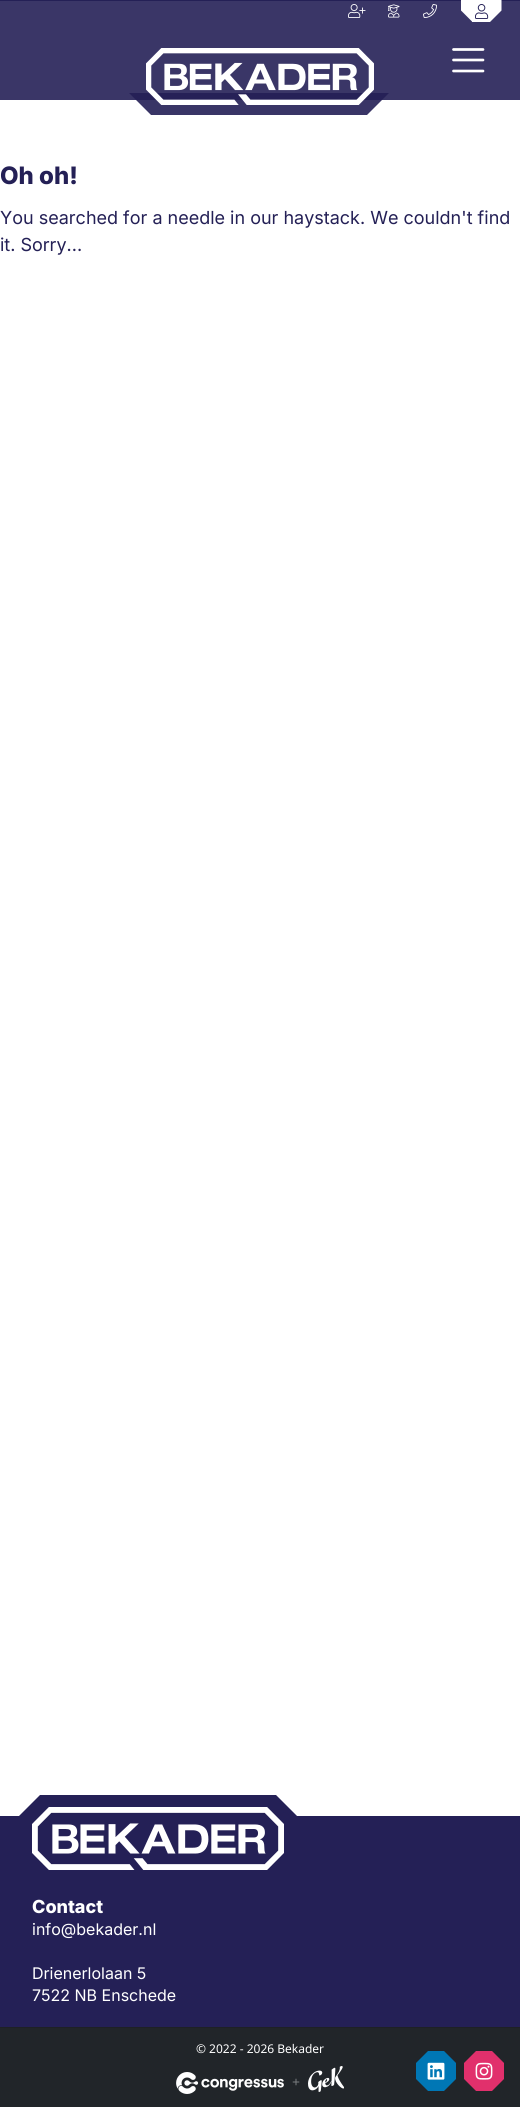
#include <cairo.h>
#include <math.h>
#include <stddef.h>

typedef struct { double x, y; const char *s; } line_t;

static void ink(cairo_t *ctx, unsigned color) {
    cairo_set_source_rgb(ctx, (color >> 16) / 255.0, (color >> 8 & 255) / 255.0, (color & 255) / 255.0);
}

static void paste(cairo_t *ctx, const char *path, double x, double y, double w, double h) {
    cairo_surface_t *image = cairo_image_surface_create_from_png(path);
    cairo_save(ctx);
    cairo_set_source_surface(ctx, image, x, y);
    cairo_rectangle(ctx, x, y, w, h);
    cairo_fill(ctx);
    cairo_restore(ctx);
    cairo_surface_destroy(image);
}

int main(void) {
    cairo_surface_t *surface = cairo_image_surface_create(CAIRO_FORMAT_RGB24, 520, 2107);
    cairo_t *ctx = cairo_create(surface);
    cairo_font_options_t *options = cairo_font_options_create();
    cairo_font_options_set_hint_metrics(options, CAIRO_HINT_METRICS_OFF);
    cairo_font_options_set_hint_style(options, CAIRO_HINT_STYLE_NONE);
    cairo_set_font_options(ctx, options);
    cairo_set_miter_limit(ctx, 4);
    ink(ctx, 0xFFFFFF);
    cairo_paint(ctx);
    ink(ctx, 0x242056);
    cairo_rectangle(ctx, 0, 0, 520, 1);
    cairo_fill(ctx);
    ink(ctx, 0x3A3667);
    cairo_rectangle(ctx, 0, 1, 520, 99);
    cairo_fill(ctx);
    cairo_set_source_rgba(ctx, 0.141, 0.125, 0.337, 0.9);
    cairo_new_path(ctx);
    cairo_move_to(ctx, 129, 93);
    cairo_line_to(ctx, 151, 115);
    cairo_line_to(ctx, 367, 115);
    cairo_line_to(ctx, 389, 93);
    cairo_close_path(ctx);
    cairo_fill(ctx);
    paste(ctx, "media/1.png", 146, 48, 228, 57);
    cairo_new_path(ctx);
    cairo_move_to(ctx, 453.5, 49.5);
    cairo_line_to(ctx, 483, 49.5);
    cairo_move_to(ctx, 453.5, 60);
    cairo_line_to(ctx, 483, 60);
    cairo_move_to(ctx, 453.5, 71);
    cairo_line_to(ctx, 483, 71);
    ink(ctx, 0xFFFFFF);
    cairo_set_line_width(ctx, 2.7);
    cairo_set_line_cap(ctx, CAIRO_LINE_CAP_ROUND);
    cairo_stroke(ctx);
    paste(ctx, "media/2.png", 348, 4, 18, 14);
    paste(ctx, "media/3.png", 388, 4, 12, 14);
    paste(ctx, "media/4.png", 423, 4, 14, 14);
    cairo_rectangle(ctx, 472, 0, 18, 22);
    cairo_fill(ctx);
    paste(ctx, "media/5.png", 475, 4, 14, 15);
    cairo_set_fill_rule(ctx, CAIRO_FILL_RULE_EVEN_ODD);
    cairo_new_path(ctx);
    cairo_move_to(ctx, 461, 0);
    cairo_line_to(ctx, 461, 10.5);
    cairo_line_to(ctx, 472.5, 22);
    cairo_line_to(ctx, 472.5, 0);
    cairo_close_path(ctx);
    cairo_move_to(ctx, 490, 0);
    cairo_line_to(ctx, 490, 22);
    cairo_line_to(ctx, 501.5, 10.5);
    cairo_line_to(ctx, 501.5, 0);
    cairo_close_path(ctx);
    cairo_fill(ctx);
    cairo_select_font_face(ctx, "Inter ExtraBold", CAIRO_FONT_SLANT_NORMAL, CAIRO_FONT_WEIGHT_NORMAL);
    cairo_set_font_size(ctx, 24);
    ink(ctx, 0x242056);
    cairo_move_to(ctx, 0, 184);
    cairo_show_text(ctx, "Oh oh!");
    cairo_select_font_face(ctx, "Inter", CAIRO_FONT_SLANT_NORMAL, CAIRO_FONT_WEIGHT_NORMAL);
    cairo_set_font_size(ctx, 18);
    cairo_move_to(ctx, 0, 224);
    cairo_show_text(ctx, "You searched for a needle in our haystack. We couldn't find");
    cairo_move_to(ctx, 0, 251);
    cairo_show_text(ctx, "it. Sorry...");
    cairo_rectangle(ctx, 0, 1816, 520, 211);
    cairo_fill(ctx);
    cairo_set_fill_rule(ctx, CAIRO_FILL_RULE_WINDING);
    cairo_new_path(ctx);
    cairo_move_to(ctx, 300, 1819);
    cairo_line_to(ctx, 276, 1795);
    cairo_line_to(ctx, 40, 1795);
    cairo_line_to(ctx, 16, 1819);
    cairo_close_path(ctx);
    cairo_fill(ctx);
    paste(ctx, "media/6.png", 32, 1807, 252, 63);
    cairo_select_font_face(ctx, "Inter ExtraBold", CAIRO_FONT_SLANT_NORMAL, CAIRO_FONT_WEIGHT_NORMAL);
    ink(ctx, 0xFFFFFF);
    cairo_move_to(ctx, 32, 1913);
    cairo_show_text(ctx, "Contact");
    cairo_select_font_face(ctx, "Inter", CAIRO_FONT_SLANT_NORMAL, CAIRO_FONT_WEIGHT_NORMAL);
    cairo_set_font_size(ctx, 16);
    {
        static const line_t items[] = {
            {32, 1935, "info@bekader.nl"},
            {32, 1979, "Drienerlolaan 5"},
            {32, 2001, "7522 NB Enschede"},
        };
        for (size_t i = 0; i < sizeof items / sizeof *items; i++) {
            cairo_move_to(ctx, items[i].x, items[i].y);
            cairo_show_text(ctx, items[i].s);
        }
    }
    ink(ctx, 0x212529);
    cairo_rectangle(ctx, 0, 2028, 520, 79);
    cairo_fill(ctx);
    ink(ctx, 0x0077B5);
    cairo_new_path(ctx);
    cairo_move_to(ctx, 428, 2051);
    cairo_line_to(ctx, 416, 2063);
    cairo_line_to(ctx, 416, 2079);
    cairo_line_to(ctx, 428, 2091);
    cairo_line_to(ctx, 444, 2091);
    cairo_line_to(ctx, 456, 2079);
    cairo_line_to(ctx, 456, 2063);
    cairo_line_to(ctx, 444, 2051);
    cairo_close_path(ctx);
    cairo_fill(ctx);
    paste(ctx, "media/7.png", 427, 2062, 18, 18);
    ink(ctx, 0xE1306C);
    cairo_new_path(ctx);
    cairo_move_to(ctx, 476, 2051);
    cairo_line_to(ctx, 464, 2063);
    cairo_line_to(ctx, 464, 2079);
    cairo_line_to(ctx, 476, 2091);
    cairo_line_to(ctx, 492, 2091);
    cairo_line_to(ctx, 504, 2079);
    cairo_line_to(ctx, 504, 2063);
    cairo_line_to(ctx, 492, 2051);
    cairo_close_path(ctx);
    cairo_fill(ctx);
    paste(ctx, "media/8.png", 475, 2062, 18, 18);
    ink(ctx, 0x1E2125);
    cairo_rectangle(ctx, 0, 2027, 520, 1);
    cairo_fill(ctx);
    cairo_select_font_face(ctx, "Noto Sans", CAIRO_FONT_SLANT_NORMAL, CAIRO_FONT_WEIGHT_NORMAL);
    cairo_set_font_size(ctx, 12);
    ink(ctx, 0xFFFFFF);
    cairo_move_to(ctx, 196, 2053);
    cairo_show_text(ctx, "© 2022 - 2026 Bekader");
    paste(ctx, "media/9.png", 176, 2072, 108, 22);
    paste(ctx, "media/10.png", 292, 2078, 8, 8);
    paste(ctx, "media/11.png", 308, 2066, 36, 26);
    cairo_surface_write_to_png(surface, "image.png");
    cairo_font_options_destroy(options);
    cairo_destroy(ctx);
    cairo_surface_destroy(surface);
    return 0;
}
